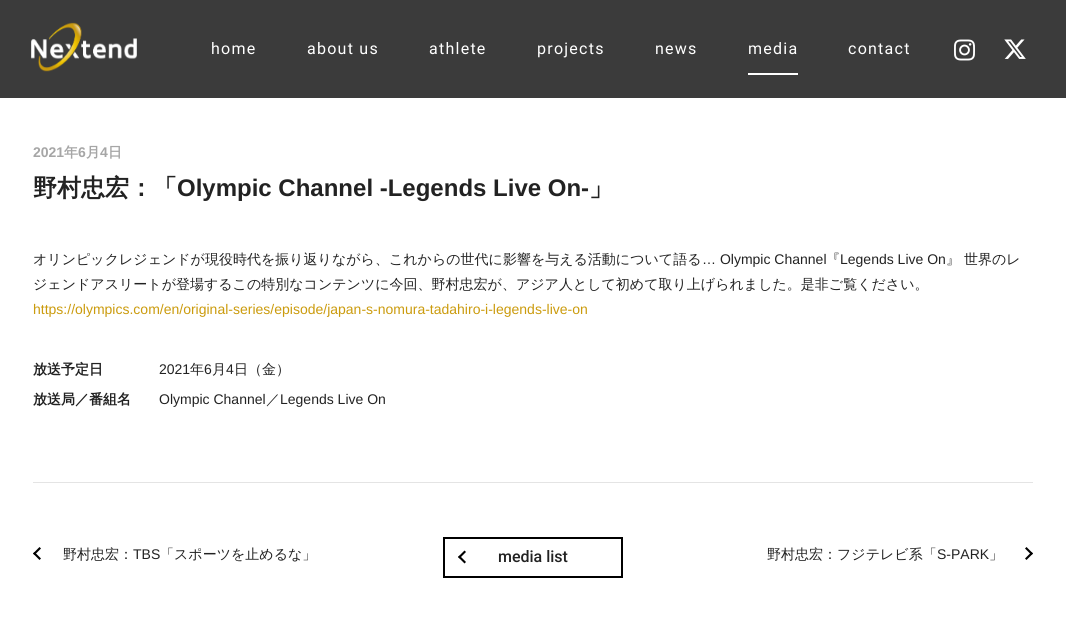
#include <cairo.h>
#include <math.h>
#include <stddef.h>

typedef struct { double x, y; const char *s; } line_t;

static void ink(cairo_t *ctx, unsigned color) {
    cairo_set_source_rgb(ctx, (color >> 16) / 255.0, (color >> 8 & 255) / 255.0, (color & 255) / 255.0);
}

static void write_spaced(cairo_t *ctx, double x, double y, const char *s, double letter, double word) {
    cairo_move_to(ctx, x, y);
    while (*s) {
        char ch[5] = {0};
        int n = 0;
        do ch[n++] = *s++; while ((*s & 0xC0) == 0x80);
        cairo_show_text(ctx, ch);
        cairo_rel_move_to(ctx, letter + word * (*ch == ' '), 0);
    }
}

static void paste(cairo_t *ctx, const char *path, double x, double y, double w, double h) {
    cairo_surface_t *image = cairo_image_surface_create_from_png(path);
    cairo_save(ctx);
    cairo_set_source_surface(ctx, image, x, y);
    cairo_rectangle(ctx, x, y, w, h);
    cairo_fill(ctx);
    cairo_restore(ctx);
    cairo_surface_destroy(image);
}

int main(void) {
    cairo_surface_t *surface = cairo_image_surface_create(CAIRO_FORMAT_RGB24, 1066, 620);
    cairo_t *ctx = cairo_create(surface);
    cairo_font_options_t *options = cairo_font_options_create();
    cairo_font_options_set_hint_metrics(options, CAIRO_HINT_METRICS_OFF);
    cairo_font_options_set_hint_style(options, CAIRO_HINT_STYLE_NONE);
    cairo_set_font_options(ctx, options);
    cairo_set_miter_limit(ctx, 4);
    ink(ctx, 0xFFFFFF);
    cairo_paint(ctx);
    ink(ctx, 0x3B3B3B);
    cairo_rectangle(ctx, 0, 0, 1066, 98);
    cairo_fill(ctx);
    paste(ctx, "media/1.png", 31, 22, 106, 50);
    cairo_select_font_face(ctx, "Roboto", CAIRO_FONT_SLANT_NORMAL, CAIRO_FONT_WEIGHT_NORMAL);
    cairo_set_font_size(ctx, 16);
    ink(ctx, 0xFFFFFF);
    {
        static const line_t items[] = {
            {211, 54, "home"},
            {307, 54, "about us"},
            {429, 54, "athlete"},
            {537, 54, "projects"},
            {655, 54, "news"},
            {748, 54, "media"},
        };
        for (size_t i = 0; i < sizeof items / sizeof *items; i++) {
            write_spaced(ctx, items[i].x, items[i].y, items[i].s, 1.25, 0);
        }
    }
    cairo_rectangle(ctx, 748, 73, 50, 2);
    cairo_fill(ctx);
    write_spaced(ctx, 848, 54, "contact", 1.25, 0);
    paste(ctx, "media/2.png", 954, 39, 21, 22);
    paste(ctx, "media/3.png", 1004, 39, 22, 20);
    cairo_select_font_face(ctx, "Liberation Sans", CAIRO_FONT_SLANT_NORMAL, CAIRO_FONT_WEIGHT_BOLD);
    cairo_set_font_size(ctx, 14);
    ink(ctx, 0xA6A6A6);
    cairo_move_to(ctx, 33, 157);
    cairo_show_text(ctx, "2021");
    cairo_select_font_face(ctx, "WenQuanYi Zen Hei", CAIRO_FONT_SLANT_NORMAL, CAIRO_FONT_WEIGHT_BOLD);
    cairo_move_to(ctx, 64, 157);
    cairo_show_text(ctx, "年");
    cairo_select_font_face(ctx, "Liberation Sans", CAIRO_FONT_SLANT_NORMAL, CAIRO_FONT_WEIGHT_BOLD);
    cairo_move_to(ctx, 78, 157);
    cairo_show_text(ctx, "6");
    cairo_select_font_face(ctx, "WenQuanYi Zen Hei", CAIRO_FONT_SLANT_NORMAL, CAIRO_FONT_WEIGHT_BOLD);
    cairo_move_to(ctx, 86, 157);
    cairo_show_text(ctx, "月");
    cairo_select_font_face(ctx, "Liberation Sans", CAIRO_FONT_SLANT_NORMAL, CAIRO_FONT_WEIGHT_BOLD);
    cairo_move_to(ctx, 100, 157);
    cairo_show_text(ctx, "4");
    cairo_select_font_face(ctx, "WenQuanYi Zen Hei", CAIRO_FONT_SLANT_NORMAL, CAIRO_FONT_WEIGHT_BOLD);
    cairo_move_to(ctx, 108, 157);
    cairo_show_text(ctx, "日");
    cairo_set_font_size(ctx, 24);
    ink(ctx, 0x222222);
    cairo_move_to(ctx, 33, 196);
    cairo_show_text(ctx, "野村忠宏：「");
    cairo_select_font_face(ctx, "Liberation Sans", CAIRO_FONT_SLANT_NORMAL, CAIRO_FONT_WEIGHT_BOLD);
    cairo_move_to(ctx, 177, 196);
    cairo_show_text(ctx, "Olympic Channel -Legends Live On-");
    cairo_select_font_face(ctx, "WenQuanYi Zen Hei", CAIRO_FONT_SLANT_NORMAL, CAIRO_FONT_WEIGHT_BOLD);
    cairo_move_to(ctx, 589, 196);
    cairo_show_text(ctx, "」");
    cairo_select_font_face(ctx, "WenQuanYi Zen Hei Medium", CAIRO_FONT_SLANT_NORMAL, CAIRO_FONT_WEIGHT_NORMAL);
    cairo_set_font_size(ctx, 14);
    cairo_move_to(ctx, 33, 264);
    cairo_show_text(ctx, "オリンピックレジェンドが現役時代を振り返りながら、これからの世代に影響を与える活動について語る");
    cairo_select_font_face(ctx, "Liberation Sans", CAIRO_FONT_SLANT_NORMAL, CAIRO_FONT_WEIGHT_NORMAL);
    cairo_move_to(ctx, 702, 264);
    cairo_show_text(ctx, "… Olympic Channel");
    cairo_select_font_face(ctx, "WenQuanYi Zen Hei Medium", CAIRO_FONT_SLANT_NORMAL, CAIRO_FONT_WEIGHT_NORMAL);
    cairo_move_to(ctx, 826, 264);
    cairo_show_text(ctx, "『");
    cairo_select_font_face(ctx, "Liberation Sans", CAIRO_FONT_SLANT_NORMAL, CAIRO_FONT_WEIGHT_NORMAL);
    cairo_move_to(ctx, 840, 264);
    cairo_show_text(ctx, "Legends Live On");
    cairo_select_font_face(ctx, "WenQuanYi Zen Hei Medium", CAIRO_FONT_SLANT_NORMAL, CAIRO_FONT_WEIGHT_NORMAL);
    {
        static const line_t items[] = {
            {946, 264, "』"},
            {964, 264, "世界のレ"},
            {33, 289, "ジェンドアスリートが登場するこの特別なコンテンツに今回、野村忠宏が、アジア人として初めて取り上げられました。是非ご覧ください。"},
        };
        for (size_t i = 0; i < sizeof items / sizeof *items; i++) {
            cairo_move_to(ctx, items[i].x, items[i].y);
            cairo_show_text(ctx, items[i].s);
        }
    }
    cairo_select_font_face(ctx, "Liberation Sans", CAIRO_FONT_SLANT_NORMAL, CAIRO_FONT_WEIGHT_NORMAL);
    ink(ctx, 0xCB9B0D);
    cairo_move_to(ctx, 33, 314);
    cairo_show_text(ctx, "https://olympics.com/en/original-series/episode/japan-s-nomura-tadahiro-i-legends-live-on");
    cairo_select_font_face(ctx, "WenQuanYi Zen Hei", CAIRO_FONT_SLANT_NORMAL, CAIRO_FONT_WEIGHT_BOLD);
    ink(ctx, 0x222222);
    cairo_move_to(ctx, 33, 374);
    cairo_show_text(ctx, "放送予定日");
    cairo_select_font_face(ctx, "Liberation Sans", CAIRO_FONT_SLANT_NORMAL, CAIRO_FONT_WEIGHT_NORMAL);
    cairo_move_to(ctx, 159, 374);
    cairo_show_text(ctx, "2021");
    cairo_select_font_face(ctx, "WenQuanYi Zen Hei Medium", CAIRO_FONT_SLANT_NORMAL, CAIRO_FONT_WEIGHT_NORMAL);
    cairo_move_to(ctx, 190, 374);
    cairo_show_text(ctx, "年");
    cairo_select_font_face(ctx, "Liberation Sans", CAIRO_FONT_SLANT_NORMAL, CAIRO_FONT_WEIGHT_NORMAL);
    cairo_move_to(ctx, 204, 374);
    cairo_show_text(ctx, "6");
    cairo_select_font_face(ctx, "WenQuanYi Zen Hei Medium", CAIRO_FONT_SLANT_NORMAL, CAIRO_FONT_WEIGHT_NORMAL);
    cairo_move_to(ctx, 212, 374);
    cairo_show_text(ctx, "月");
    cairo_select_font_face(ctx, "Liberation Sans", CAIRO_FONT_SLANT_NORMAL, CAIRO_FONT_WEIGHT_NORMAL);
    cairo_move_to(ctx, 226, 374);
    cairo_show_text(ctx, "4");
    cairo_select_font_face(ctx, "WenQuanYi Zen Hei Medium", CAIRO_FONT_SLANT_NORMAL, CAIRO_FONT_WEIGHT_NORMAL);
    cairo_move_to(ctx, 234, 374);
    cairo_show_text(ctx, "日（金）");
    cairo_select_font_face(ctx, "WenQuanYi Zen Hei", CAIRO_FONT_SLANT_NORMAL, CAIRO_FONT_WEIGHT_BOLD);
    cairo_move_to(ctx, 33, 404);
    cairo_show_text(ctx, "放送局／番組名");
    cairo_select_font_face(ctx, "Liberation Sans", CAIRO_FONT_SLANT_NORMAL, CAIRO_FONT_WEIGHT_NORMAL);
    cairo_move_to(ctx, 159, 404);
    cairo_show_text(ctx, "Olympic Channel");
    cairo_select_font_face(ctx, "WenQuanYi Zen Hei Medium", CAIRO_FONT_SLANT_NORMAL, CAIRO_FONT_WEIGHT_NORMAL);
    cairo_move_to(ctx, 266, 404);
    cairo_show_text(ctx, "／");
    cairo_select_font_face(ctx, "Liberation Sans", CAIRO_FONT_SLANT_NORMAL, CAIRO_FONT_WEIGHT_NORMAL);
    cairo_move_to(ctx, 280, 404);
    cairo_show_text(ctx, "Legends Live On");
    ink(ctx, 0xE4E4E4);
    cairo_rectangle(ctx, 33, 482, 1000, 1);
    cairo_fill(ctx);
    ink(ctx, 0x000000);
    cairo_new_path(ctx);
    cairo_move_to(ctx, 39.5, 560);
    cairo_line_to(ctx, 33, 553.5);
    cairo_line_to(ctx, 34.5, 552);
    cairo_line_to(ctx, 41, 558.5);
    cairo_close_path(ctx);
    cairo_fill(ctx);
    cairo_new_path(ctx);
    cairo_move_to(ctx, 34.5, 555);
    cairo_line_to(ctx, 33, 553.5);
    cairo_line_to(ctx, 39.5, 547);
    cairo_line_to(ctx, 41, 548.5);
    cairo_close_path(ctx);
    cairo_fill(ctx);
    cairo_select_font_face(ctx, "WenQuanYi Zen Hei Medium", CAIRO_FONT_SLANT_NORMAL, CAIRO_FONT_WEIGHT_NORMAL);
    ink(ctx, 0x222222);
    cairo_move_to(ctx, 63, 559);
    cairo_show_text(ctx, "野村忠宏：");
    cairo_select_font_face(ctx, "Liberation Sans", CAIRO_FONT_SLANT_NORMAL, CAIRO_FONT_WEIGHT_NORMAL);
    cairo_move_to(ctx, 133, 559);
    cairo_show_text(ctx, "TBS");
    cairo_select_font_face(ctx, "WenQuanYi Zen Hei Medium", CAIRO_FONT_SLANT_NORMAL, CAIRO_FONT_WEIGHT_NORMAL);
    cairo_move_to(ctx, 160, 559);
    cairo_show_text(ctx, "「スポーツを止めるな」");
    cairo_rectangle(ctx, 444, 538, 178, 39);
    ink(ctx, 0x000000);
    cairo_stroke(ctx);
    cairo_new_path(ctx);
    cairo_move_to(ctx, 464.5, 563.5);
    cairo_line_to(ctx, 458, 557);
    cairo_line_to(ctx, 459.5, 555.5);
    cairo_line_to(ctx, 466, 562);
    cairo_close_path(ctx);
    cairo_fill(ctx);
    cairo_new_path(ctx);
    cairo_move_to(ctx, 459.5, 558.5);
    cairo_line_to(ctx, 458, 557);
    cairo_line_to(ctx, 464.5, 550.5);
    cairo_line_to(ctx, 466, 552);
    cairo_close_path(ctx);
    cairo_fill(ctx);
    cairo_select_font_face(ctx, "Roboto Medium", CAIRO_FONT_SLANT_NORMAL, CAIRO_FONT_WEIGHT_NORMAL);
    cairo_set_font_size(ctx, 16);
    ink(ctx, 0x222222);
    cairo_move_to(ctx, 498, 562);
    cairo_show_text(ctx, "media list");
    cairo_select_font_face(ctx, "WenQuanYi Zen Hei Medium", CAIRO_FONT_SLANT_NORMAL, CAIRO_FONT_WEIGHT_NORMAL);
    cairo_set_font_size(ctx, 14);
    cairo_move_to(ctx, 767, 559);
    cairo_show_text(ctx, "野村忠宏：フジテレビ系「");
    cairo_select_font_face(ctx, "Liberation Sans", CAIRO_FONT_SLANT_NORMAL, CAIRO_FONT_WEIGHT_NORMAL);
    cairo_move_to(ctx, 937, 559);
    cairo_show_text(ctx, "S-PARK");
    cairo_select_font_face(ctx, "WenQuanYi Zen Hei Medium", CAIRO_FONT_SLANT_NORMAL, CAIRO_FONT_WEIGHT_NORMAL);
    cairo_move_to(ctx, 989, 559);
    cairo_show_text(ctx, "」");
    ink(ctx, 0x000000);
    cairo_new_path(ctx);
    cairo_move_to(ctx, 1026.5, 547);
    cairo_line_to(ctx, 1033, 553.5);
    cairo_line_to(ctx, 1031.5, 555);
    cairo_line_to(ctx, 1025, 548.5);
    cairo_close_path(ctx);
    cairo_fill(ctx);
    cairo_new_path(ctx);
    cairo_move_to(ctx, 1031.5, 552);
    cairo_line_to(ctx, 1033, 553.5);
    cairo_line_to(ctx, 1026.5, 560);
    cairo_line_to(ctx, 1025, 558.5);
    cairo_close_path(ctx);
    cairo_fill(ctx);
    cairo_surface_write_to_png(surface, "image.png");
    cairo_font_options_destroy(options);
    cairo_destroy(ctx);
    cairo_surface_destroy(surface);
    return 0;
}
